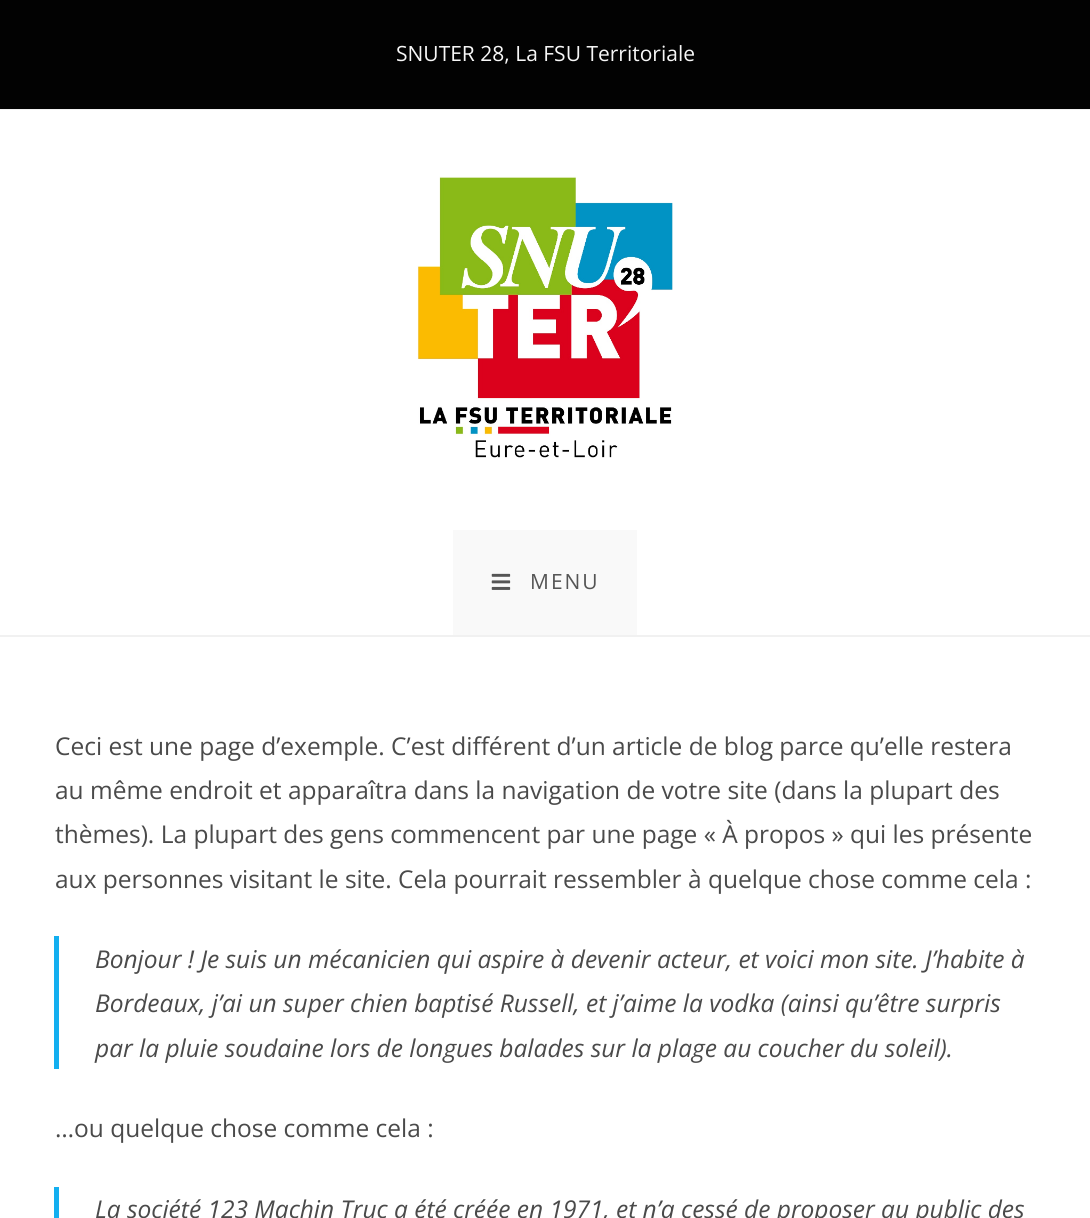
#include <cairo.h>
#include <math.h>
#include <stddef.h>

typedef struct { double x, y; const char *s; } line_t;

static void ink(cairo_t *ctx, unsigned color) {
    cairo_set_source_rgb(ctx, (color >> 16) / 255.0, (color >> 8 & 255) / 255.0, (color & 255) / 255.0);
}

static void write_spaced(cairo_t *ctx, double x, double y, const char *s, double letter, double word) {
    cairo_move_to(ctx, x, y);
    while (*s) {
        char ch[5] = {0};
        int n = 0;
        do ch[n++] = *s++; while ((*s & 0xC0) == 0x80);
        cairo_show_text(ctx, ch);
        cairo_rel_move_to(ctx, letter + word * (*ch == ' '), 0);
    }
}

static void paste(cairo_t *ctx, const char *path, double x, double y, double w, double h) {
    cairo_surface_t *image = cairo_image_surface_create_from_png(path);
    cairo_save(ctx);
    cairo_set_source_surface(ctx, image, x, y);
    cairo_rectangle(ctx, x, y, w, h);
    cairo_fill(ctx);
    cairo_restore(ctx);
    cairo_surface_destroy(image);
}

int main(void) {
    cairo_surface_t *surface = cairo_image_surface_create(CAIRO_FORMAT_RGB24, 1090, 1218);
    cairo_t *ctx = cairo_create(surface);
    cairo_font_options_t *options = cairo_font_options_create();
    cairo_font_options_set_hint_metrics(options, CAIRO_HINT_METRICS_OFF);
    cairo_font_options_set_hint_style(options, CAIRO_HINT_STYLE_NONE);
    cairo_set_font_options(ctx, options);
    cairo_set_miter_limit(ctx, 4);
    ink(ctx, 0xFFFFFF);
    cairo_paint(ctx);
    ink(ctx, 0x020202);
    cairo_rectangle(ctx, 0, 0, 1090, 109);
    cairo_fill(ctx);
    ink(ctx, 0xF1F1F1);
    cairo_rectangle(ctx, 0, 109, 1090, 1);
    cairo_fill(ctx);
    cairo_select_font_face(ctx, "Open Sans", CAIRO_FONT_SLANT_NORMAL, CAIRO_FONT_WEIGHT_NORMAL);
    cairo_set_font_size(ctx, 21);
    ink(ctx, 0xF7F7F7);
    cairo_move_to(ctx, 396, 61);
    cairo_show_text(ctx, "SNUTER 28, La FSU Territoriale");
    ink(ctx, 0xF1F1F1);
    cairo_rectangle(ctx, 0, 635, 1090, 2);
    cairo_fill(ctx);
    paste(ctx, "media/1.png", 417, 176, 256, 282);
    ink(ctx, 0xF9F9F9);
    cairo_rectangle(ctx, 453, 530, 184, 105);
    cairo_fill(ctx);
    paste(ctx, "media/2.png", 491, 573, 20, 17);
    ink(ctx, 0x555555);
    write_spaced(ctx, 530, 589, "MENU", 2, 0);
    cairo_set_font_size(ctx, 24.5);
    ink(ctx, 0x4A4A4A);
    {
        static const line_t items[] = {
            {55, 755, "Ceci est une page d’exemple. C’est différent d’un article de blog parce qu’elle restera"},
            {55, 799, "au même endroit et apparaîtra dans la navigation de votre site (dans la plupart des"},
            {55, 843, "thèmes). La plupart des gens commencent par une page « À propos » qui les présente"},
            {55, 888, "aux personnes visitant le site. Cela pourrait ressembler à quelque chose comme cela :"},
        };
        for (size_t i = 0; i < sizeof items / sizeof *items; i++) {
            cairo_move_to(ctx, items[i].x, items[i].y);
            cairo_show_text(ctx, items[i].s);
        }
    }
    ink(ctx, 0x13AFF0);
    cairo_rectangle(ctx, 54, 936, 5, 133);
    cairo_fill(ctx);
    cairo_select_font_face(ctx, "Open Sans", CAIRO_FONT_SLANT_ITALIC, CAIRO_FONT_WEIGHT_NORMAL);
    ink(ctx, 0x4A4A4A);
    {
        static const line_t items[] = {
            {95, 968, "Bonjour ! Je suis un mécanicien qui aspire à devenir acteur, et voici mon site. J’habite à"},
            {95, 1012, "Bordeaux, j’ai un super chien baptisé Russell, et j’aime la vodka (ainsi qu’être surpris"},
            {95, 1057, "par la pluie soudaine lors de longues balades sur la plage au coucher du soleil)."},
        };
        for (size_t i = 0; i < sizeof items / sizeof *items; i++) {
            cairo_move_to(ctx, items[i].x, items[i].y);
            cairo_show_text(ctx, items[i].s);
        }
    }
    cairo_select_font_face(ctx, "Open Sans", CAIRO_FONT_SLANT_NORMAL, CAIRO_FONT_WEIGHT_NORMAL);
    cairo_move_to(ctx, 55, 1137);
    cairo_show_text(ctx, "…ou quelque chose comme cela :");
    ink(ctx, 0x13AFF0);
    cairo_rectangle(ctx, 54, 1187, 5, 31);
    cairo_fill(ctx);
    cairo_select_font_face(ctx, "Open Sans", CAIRO_FONT_SLANT_ITALIC, CAIRO_FONT_WEIGHT_NORMAL);
    ink(ctx, 0x4A4A4A);
    cairo_move_to(ctx, 95, 1218);
    cairo_show_text(ctx, "La société 123 Machin Truc a été créée en 1971, et n’a cessé de proposer au public des");
    cairo_surface_write_to_png(surface, "image.png");
    cairo_font_options_destroy(options);
    cairo_destroy(ctx);
    cairo_surface_destroy(surface);
    return 0;
}
